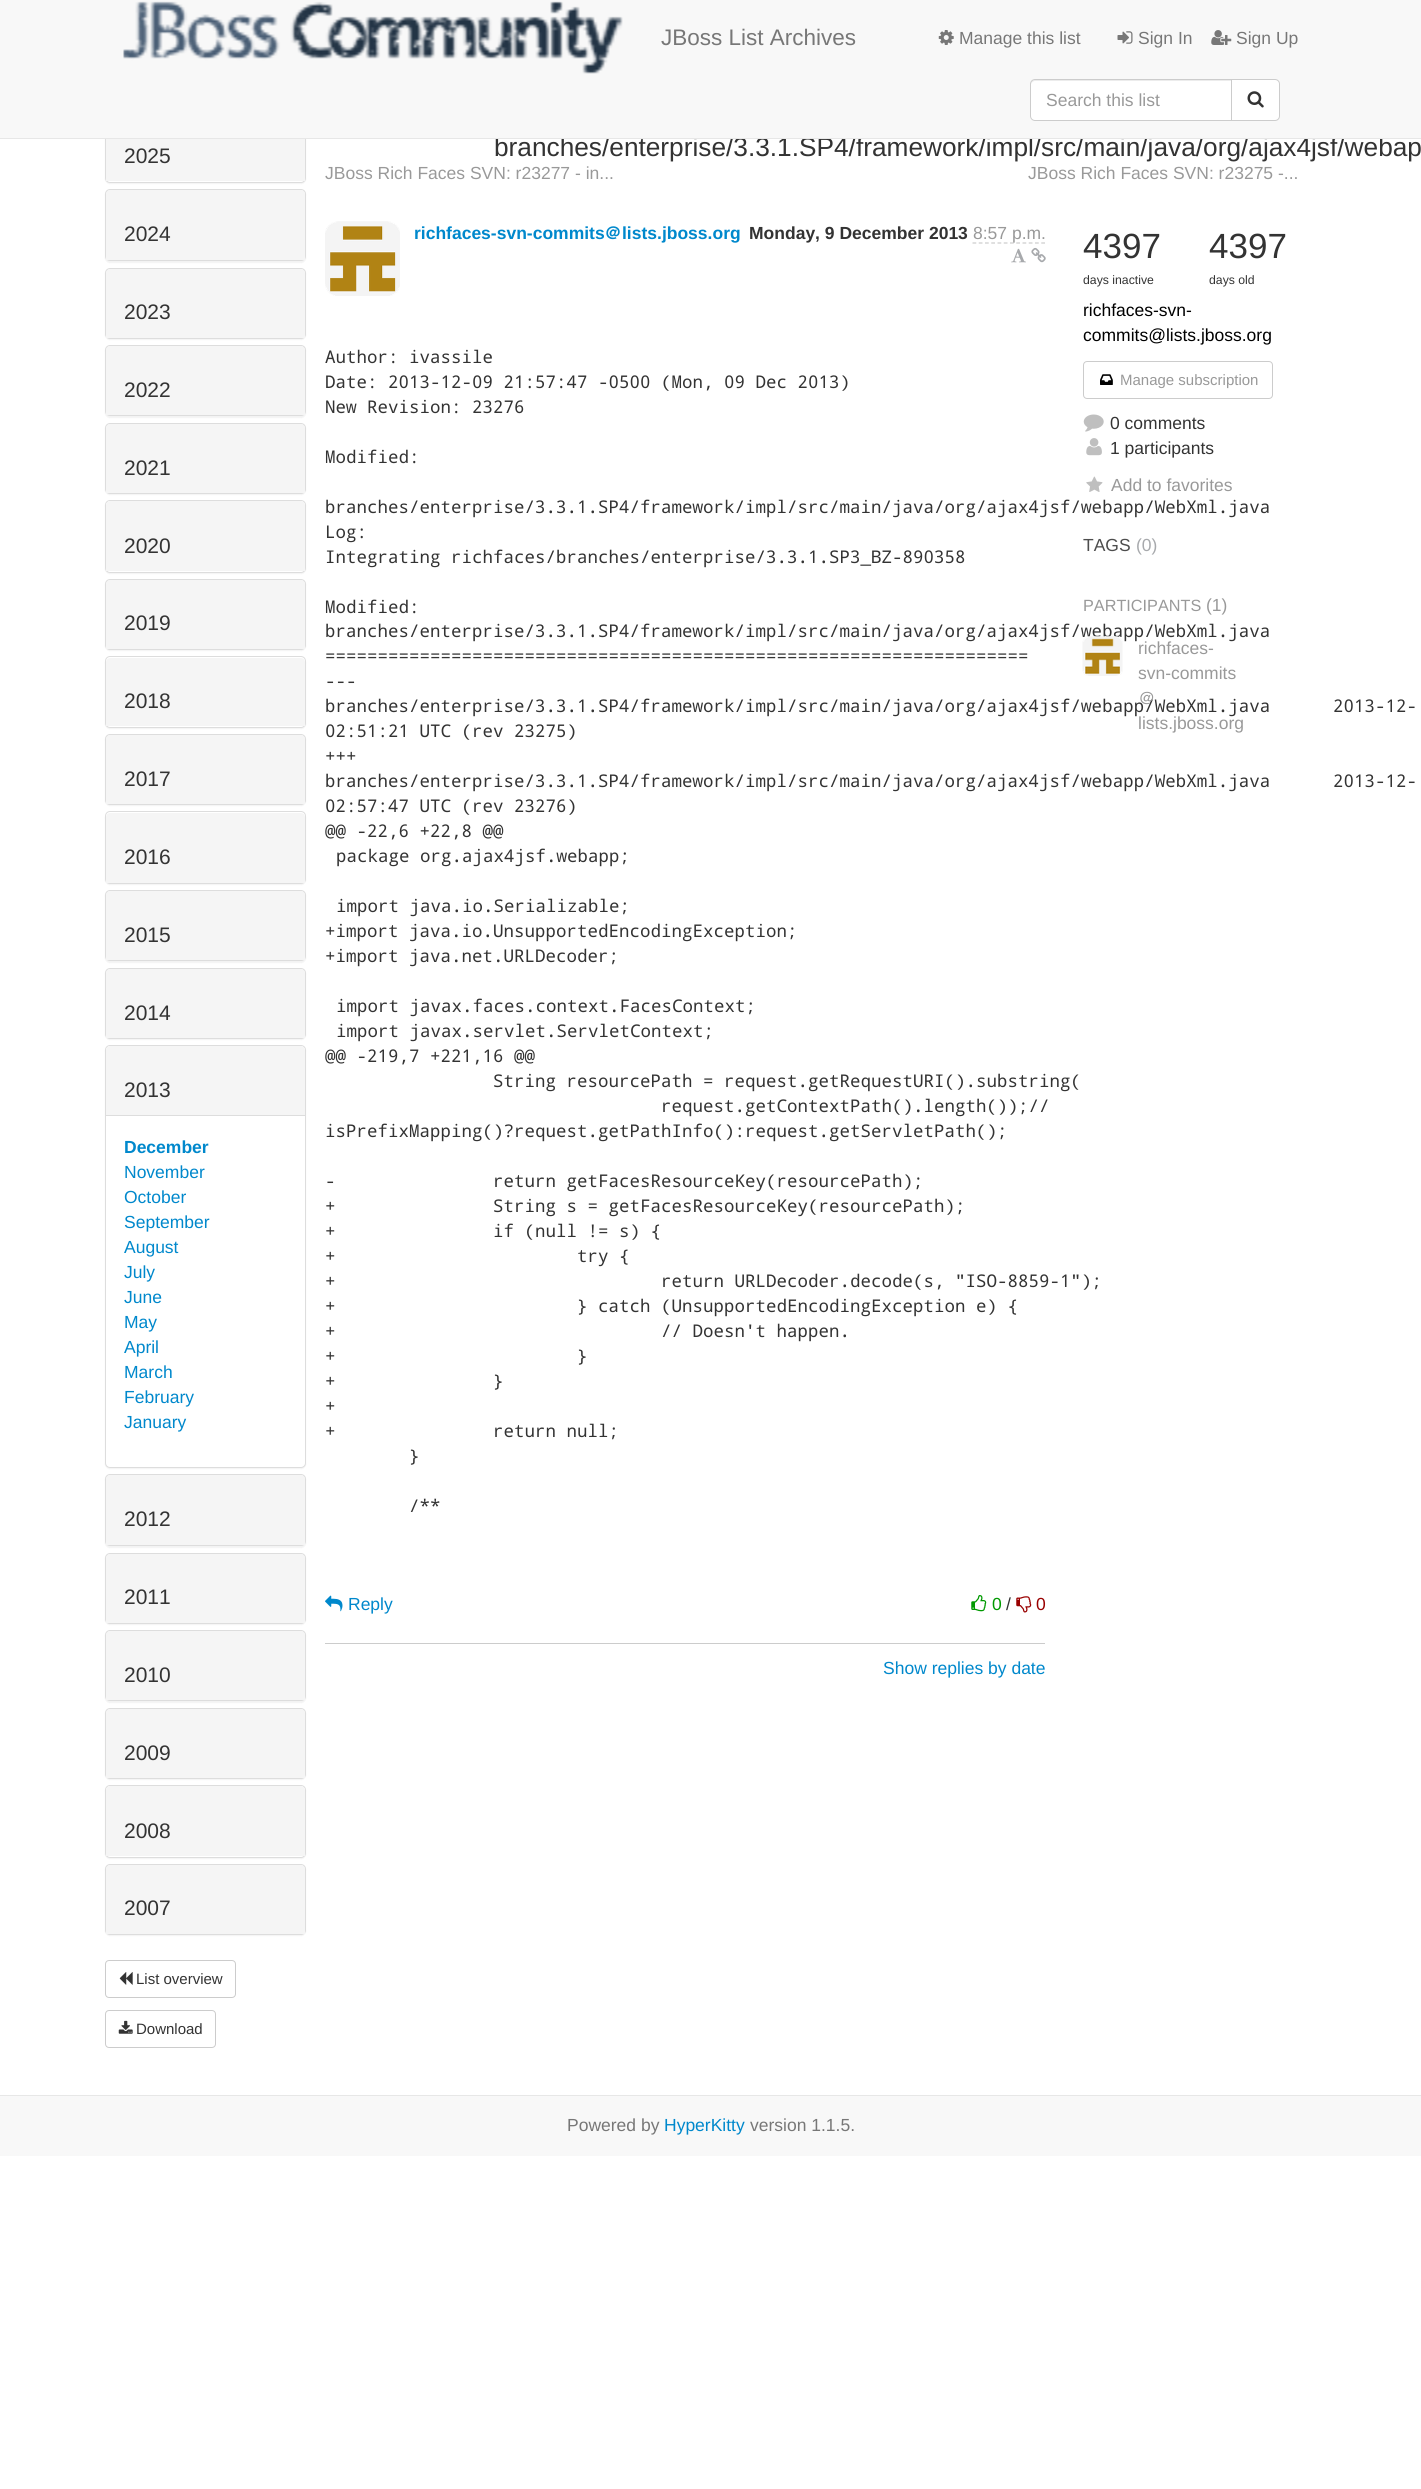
#include <cairo.h>
#include <math.h>
#include <stddef.h>

typedef struct { double x, y; const char *s; } line_t;

static void ink(cairo_t *ctx, unsigned color) {
    cairo_set_source_rgb(ctx, (color >> 16) / 255.0, (color >> 8 & 255) / 255.0, (color & 255) / 255.0);
}

static void round_path(cairo_t *ctx, double x, double y, double w, double h, double r) {
    cairo_new_sub_path(ctx);
    cairo_arc(ctx, x + w - r, y + h - r, r, 0, M_PI / 2);
    cairo_arc(ctx, x + r, y + h - r, r, M_PI / 2, M_PI);
    cairo_arc(ctx, x + r, y + r, r, M_PI, 1.5 * M_PI);
    cairo_arc(ctx, x + w - r, y + r, r, 1.5 * M_PI, 2 * M_PI);
    cairo_close_path(ctx);
}

static void blur_box(cairo_t *ctx, double x, double y, double w, double h, double r, double blur, double alpha) {
    cairo_push_group_with_content(ctx, CAIRO_CONTENT_ALPHA);
    cairo_set_operator(ctx, CAIRO_OPERATOR_SOURCE);
    for (int i = 15; i >= -15 && fmin(w, h) + blur * i / 3 > 0; i -= 2) {
        double e = blur * i / 6;
        cairo_set_source_rgba(ctx, 0, 0, 0, alpha * erfc((i - 1) / 8.5) / 2);
        round_path(ctx, x - e, y - e, w + 2 * e, h + 2 * e, fmax(0, fmin(r + e + blur * .6, fmin(w, h) / 2 + e)));
        cairo_fill(ctx);
    }
    cairo_pattern_t *soft = cairo_pop_group(ctx);
    cairo_mask(ctx, soft);
    cairo_pattern_destroy(soft);
}

static void paste(cairo_t *ctx, const char *path, double x, double y, double w, double h) {
    cairo_surface_t *image = cairo_image_surface_create_from_png(path);
    cairo_save(ctx);
    cairo_set_source_surface(ctx, image, x, y);
    cairo_rectangle(ctx, x, y, w, h);
    cairo_fill(ctx);
    cairo_restore(ctx);
    cairo_surface_destroy(image);
}

int main(void) {
    cairo_surface_t *surface = cairo_image_surface_create(CAIRO_FORMAT_RGB24, 1421, 2489);
    cairo_t *ctx = cairo_create(surface);
    cairo_font_options_t *options = cairo_font_options_create();
    cairo_font_options_set_hint_metrics(options, CAIRO_HINT_METRICS_OFF);
    cairo_font_options_set_hint_style(options, CAIRO_HINT_STYLE_NONE);
    cairo_set_font_options(ctx, options);
    cairo_set_miter_limit(ctx, 4);
    ink(ctx, 0xFFFFFF);
    cairo_paint(ctx);
    ink(ctx, 0x000000);
    blur_box(ctx, 105, 113, 201, 71, 5, 0.5, 0.05);
    ink(ctx, 0xFFFFFF);
    round_path(ctx, 105.5, 111.5, 200, 71, 4.5);
    cairo_fill_preserve(ctx);
    ink(ctx, 0xDDDDDD);
    cairo_set_line_width(ctx, 1);
    cairo_stroke(ctx);
    cairo_select_font_face(ctx, "Liberation Sans", CAIRO_FONT_SLANT_NORMAL, CAIRO_FONT_WEIGHT_NORMAL);
    cairo_set_font_size(ctx, 26.25);
    ink(ctx, 0x333333);
    cairo_move_to(ctx, 494, 156);
    cairo_show_text(ctx, "branches/enterprise/3.3.1.SP4/framework/impl/src/main/java/org/ajax4jsf/webap");
    ink(ctx, 0xF8F8F8);
    cairo_rectangle(ctx, 0, 0, 1421, 138);
    cairo_fill(ctx);
    ink(ctx, 0xE7E7E7);
    cairo_rectangle(ctx, 0, 138, 1421, 1);
    cairo_fill(ctx);
    paste(ctx, "media/1.png", 123, 1, 500, 73);
    cairo_set_font_size(ctx, 22.5);
    ink(ctx, 0x777777);
    cairo_move_to(ctx, 661, 45);
    cairo_show_text(ctx, "JBoss List Archives");
    paste(ctx, "media/2.png", 938, 30, 16, 15);
    cairo_set_font_size(ctx, 17.5);
    cairo_move_to(ctx, 959, 44);
    cairo_show_text(ctx, "Manage this list");
    paste(ctx, "media/3.png", 1117, 31, 16, 13);
    cairo_move_to(ctx, 1138, 44);
    cairo_show_text(ctx, "Sign In");
    paste(ctx, "media/4.png", 1211, 30, 21, 15);
    cairo_move_to(ctx, 1236, 44);
    cairo_show_text(ctx, "Sign Up");
    ink(ctx, 0xFFFFFF);
    cairo_new_path(ctx);
    cairo_move_to(ctx, 1035, 79);
    cairo_line_to(ctx, 1233, 79);
    cairo_line_to(ctx, 1233, 121);
    cairo_line_to(ctx, 1035, 121);
    cairo_curve_to(ctx, 1032, 121, 1030, 119, 1030, 116);
    cairo_line_to(ctx, 1030, 84);
    cairo_curve_to(ctx, 1030, 81, 1032, 79, 1035, 79);
    cairo_close_path(ctx);
    cairo_fill(ctx);
    ink(ctx, 0xECECEC);
    cairo_new_path(ctx);
    cairo_move_to(ctx, 1035, 81);
    cairo_line_to(ctx, 1231, 81);
    cairo_line_to(ctx, 1231, 80);
    cairo_line_to(ctx, 1035, 80);
    cairo_curve_to(ctx, 1032, 80, 1031, 82, 1031, 85);
    cairo_curve_to(ctx, 1031, 83, 1033, 81, 1035, 81);
    cairo_close_path(ctx);
    cairo_fill(ctx);
    cairo_new_path(ctx);
    cairo_move_to(ctx, 1035, 79.5);
    cairo_line_to(ctx, 1232.5, 79.5);
    cairo_line_to(ctx, 1232.5, 120.5);
    cairo_line_to(ctx, 1035, 120.5);
    cairo_curve_to(ctx, 1032.5, 120.5, 1030.5, 118.5, 1030.5, 116);
    cairo_line_to(ctx, 1030.5, 84);
    cairo_curve_to(ctx, 1030.5, 81.5, 1032.5, 79.5, 1035, 79.5);
    cairo_close_path(ctx);
    ink(ctx, 0xCCCCCC);
    cairo_stroke(ctx);
    ink(ctx, 0x999999);
    cairo_move_to(ctx, 1046, 106);
    cairo_show_text(ctx, "Search this list");
    ink(ctx, 0xFFFFFF);
    cairo_new_path(ctx);
    cairo_move_to(ctx, 1231.5, 79.5);
    cairo_line_to(ctx, 1275, 79.5);
    cairo_curve_to(ctx, 1277.5, 79.5, 1279.5, 81.5, 1279.5, 84);
    cairo_line_to(ctx, 1279.5, 116);
    cairo_curve_to(ctx, 1279.5, 118.5, 1277.5, 120.5, 1275, 120.5);
    cairo_line_to(ctx, 1231.5, 120.5);
    cairo_close_path(ctx);
    cairo_fill_preserve(ctx);
    ink(ctx, 0xCCCCCC);
    cairo_stroke(ctx);
    paste(ctx, "media/5.png", 1247, 91, 17, 17);
    ink(ctx, 0xF5F5F5);
    cairo_rectangle(ctx, 106, 139, 199, 42);
    cairo_fill(ctx);
    cairo_set_font_size(ctx, 21);
    ink(ctx, 0x333333);
    cairo_move_to(ctx, 124, 163);
    cairo_show_text(ctx, "2025");
    ink(ctx, 0x000000);
    blur_box(ctx, 105, 190, 201, 73, 5, 0.5, 0.05);
    round_path(ctx, 105.5, 189.5, 200, 71, 4.5);
    ink(ctx, 0xDDDDDD);
    cairo_stroke(ctx);
    ink(ctx, 0xF5F5F5);
    cairo_new_path(ctx);
    cairo_move_to(ctx, 110, 190);
    cairo_line_to(ctx, 301, 190);
    cairo_curve_to(ctx, 303, 190, 305, 192, 305, 194);
    cairo_line_to(ctx, 305, 260);
    cairo_line_to(ctx, 106, 260);
    cairo_line_to(ctx, 106, 194);
    cairo_curve_to(ctx, 106, 192, 108, 190, 110, 190);
    cairo_close_path(ctx);
    cairo_fill(ctx);
    ink(ctx, 0x333333);
    cairo_move_to(ctx, 124, 241);
    cairo_show_text(ctx, "2024");
    ink(ctx, 0x000000);
    blur_box(ctx, 105, 269, 201, 71, 5, 0.5, 0.05);
    round_path(ctx, 105.5, 268.5, 200, 70, 4.5);
    ink(ctx, 0xDDDDDD);
    cairo_stroke(ctx);
    ink(ctx, 0xF5F5F5);
    cairo_new_path(ctx);
    cairo_move_to(ctx, 110, 269);
    cairo_line_to(ctx, 301, 269);
    cairo_curve_to(ctx, 303, 269, 305, 271, 305, 273);
    cairo_line_to(ctx, 305, 338);
    cairo_line_to(ctx, 106, 338);
    cairo_line_to(ctx, 106, 273);
    cairo_curve_to(ctx, 106, 271, 108, 269, 110, 269);
    cairo_close_path(ctx);
    cairo_fill(ctx);
    ink(ctx, 0x333333);
    cairo_move_to(ctx, 124, 319);
    cairo_show_text(ctx, "2023");
    ink(ctx, 0x000000);
    blur_box(ctx, 105, 346, 201, 72, 5, 0.5, 0.05);
    round_path(ctx, 105.5, 345.5, 200, 70, 4.5);
    ink(ctx, 0xDDDDDD);
    cairo_stroke(ctx);
    ink(ctx, 0xF5F5F5);
    cairo_new_path(ctx);
    cairo_move_to(ctx, 110, 346);
    cairo_line_to(ctx, 301, 346);
    cairo_curve_to(ctx, 303, 346, 305, 348, 305, 350);
    cairo_line_to(ctx, 305, 415);
    cairo_line_to(ctx, 106, 415);
    cairo_line_to(ctx, 106, 350);
    cairo_curve_to(ctx, 106, 348, 108, 346, 110, 346);
    cairo_close_path(ctx);
    cairo_fill(ctx);
    ink(ctx, 0x333333);
    cairo_move_to(ctx, 124, 397);
    cairo_show_text(ctx, "2022");
    ink(ctx, 0x000000);
    blur_box(ctx, 105, 424, 201, 71, 5, 0.5, 0.05);
    round_path(ctx, 105.5, 423.5, 200, 70, 4.5);
    ink(ctx, 0xDDDDDD);
    cairo_stroke(ctx);
    ink(ctx, 0xF5F5F5);
    cairo_new_path(ctx);
    cairo_move_to(ctx, 110, 424);
    cairo_line_to(ctx, 301, 424);
    cairo_curve_to(ctx, 303, 424, 305, 426, 305, 428);
    cairo_line_to(ctx, 305, 493);
    cairo_line_to(ctx, 106, 493);
    cairo_line_to(ctx, 106, 428);
    cairo_curve_to(ctx, 106, 426, 108, 424, 110, 424);
    cairo_close_path(ctx);
    cairo_fill(ctx);
    ink(ctx, 0x333333);
    cairo_move_to(ctx, 124, 475);
    cairo_show_text(ctx, "2021");
    ink(ctx, 0x000000);
    blur_box(ctx, 105, 501, 201, 73, 5, 0.5, 0.05);
    ink(ctx, 0xFFFFFF);
    round_path(ctx, 105.5, 500.5, 200, 72, 4.5);
    cairo_fill_preserve(ctx);
    ink(ctx, 0xDDDDDD);
    cairo_stroke(ctx);
    ink(ctx, 0xF5F5F5);
    cairo_new_path(ctx);
    cairo_move_to(ctx, 110, 501);
    cairo_line_to(ctx, 301, 501);
    cairo_curve_to(ctx, 303, 501, 305, 503, 305, 505);
    cairo_line_to(ctx, 305, 571);
    cairo_line_to(ctx, 106, 571);
    cairo_line_to(ctx, 106, 505);
    cairo_curve_to(ctx, 106, 503, 108, 501, 110, 501);
    cairo_close_path(ctx);
    cairo_fill(ctx);
    ink(ctx, 0x333333);
    cairo_move_to(ctx, 124, 553);
    cairo_show_text(ctx, "2020");
    ink(ctx, 0x000000);
    blur_box(ctx, 105, 580, 201, 71, 5, 0.5, 0.05);
    round_path(ctx, 105.5, 579.5, 200, 70, 4.5);
    ink(ctx, 0xDDDDDD);
    cairo_stroke(ctx);
    ink(ctx, 0xF5F5F5);
    cairo_new_path(ctx);
    cairo_move_to(ctx, 110, 580);
    cairo_line_to(ctx, 301, 580);
    cairo_curve_to(ctx, 303, 580, 305, 582, 305, 584);
    cairo_line_to(ctx, 305, 649);
    cairo_line_to(ctx, 106, 649);
    cairo_line_to(ctx, 106, 584);
    cairo_curve_to(ctx, 106, 582, 108, 580, 110, 580);
    cairo_close_path(ctx);
    cairo_fill(ctx);
    ink(ctx, 0x333333);
    cairo_move_to(ctx, 124, 630);
    cairo_show_text(ctx, "2019");
    ink(ctx, 0x000000);
    blur_box(ctx, 105, 658, 201, 71, 5, 0.5, 0.05);
    ink(ctx, 0xFFFFFF);
    round_path(ctx, 105.5, 656.5, 200, 71, 4.5);
    cairo_fill_preserve(ctx);
    ink(ctx, 0xDDDDDD);
    cairo_stroke(ctx);
    ink(ctx, 0xF5F5F5);
    cairo_new_path(ctx);
    cairo_move_to(ctx, 110, 658);
    cairo_line_to(ctx, 301, 658);
    cairo_curve_to(ctx, 303, 658, 305, 660, 305, 662);
    cairo_line_to(ctx, 305, 726);
    cairo_line_to(ctx, 106, 726);
    cairo_line_to(ctx, 106, 662);
    cairo_curve_to(ctx, 106, 660, 108, 658, 110, 658);
    cairo_close_path(ctx);
    cairo_fill(ctx);
    ink(ctx, 0x333333);
    cairo_move_to(ctx, 124, 708);
    cairo_show_text(ctx, "2018");
    ink(ctx, 0x000000);
    blur_box(ctx, 105, 735, 201, 71, 5, 0.5, 0.05);
    round_path(ctx, 105.5, 734.5, 200, 70, 4.5);
    ink(ctx, 0xDDDDDD);
    cairo_stroke(ctx);
    ink(ctx, 0xF5F5F5);
    cairo_new_path(ctx);
    cairo_move_to(ctx, 110, 735);
    cairo_line_to(ctx, 301, 735);
    cairo_curve_to(ctx, 303, 735, 305, 737, 305, 739);
    cairo_line_to(ctx, 305, 804);
    cairo_line_to(ctx, 106, 804);
    cairo_line_to(ctx, 106, 739);
    cairo_curve_to(ctx, 106, 737, 108, 735, 110, 735);
    cairo_close_path(ctx);
    cairo_fill(ctx);
    ink(ctx, 0x333333);
    cairo_move_to(ctx, 124, 786);
    cairo_show_text(ctx, "2017");
    ink(ctx, 0x000000);
    blur_box(ctx, 105, 813, 201, 72, 5, 0.5, 0.05);
    ink(ctx, 0xFFFFFF);
    round_path(ctx, 105.5, 811.5, 200, 72, 4.5);
    cairo_fill_preserve(ctx);
    ink(ctx, 0xDDDDDD);
    cairo_stroke(ctx);
    ink(ctx, 0xF5F5F5);
    cairo_new_path(ctx);
    cairo_move_to(ctx, 110, 813);
    cairo_line_to(ctx, 301, 813);
    cairo_curve_to(ctx, 303, 813, 305, 815, 305, 817);
    cairo_line_to(ctx, 305, 883);
    cairo_line_to(ctx, 106, 883);
    cairo_line_to(ctx, 106, 817);
    cairo_curve_to(ctx, 106, 815, 108, 813, 110, 813);
    cairo_close_path(ctx);
    cairo_fill(ctx);
    ink(ctx, 0x333333);
    cairo_move_to(ctx, 124, 864);
    cairo_show_text(ctx, "2016");
    ink(ctx, 0x000000);
    blur_box(ctx, 105, 891, 201, 72, 5, 0.5, 0.05);
    round_path(ctx, 105.5, 890.5, 200, 70, 4.5);
    ink(ctx, 0xDDDDDD);
    cairo_stroke(ctx);
    ink(ctx, 0xF5F5F5);
    cairo_new_path(ctx);
    cairo_move_to(ctx, 110, 891);
    cairo_line_to(ctx, 301, 891);
    cairo_curve_to(ctx, 303, 891, 305, 893, 305, 895);
    cairo_line_to(ctx, 305, 960);
    cairo_line_to(ctx, 106, 960);
    cairo_line_to(ctx, 106, 895);
    cairo_curve_to(ctx, 106, 893, 108, 891, 110, 891);
    cairo_close_path(ctx);
    cairo_fill(ctx);
    ink(ctx, 0x333333);
    cairo_move_to(ctx, 124, 942);
    cairo_show_text(ctx, "2015");
    ink(ctx, 0x000000);
    blur_box(ctx, 105, 969, 201, 71, 5, 0.5, 0.05);
    round_path(ctx, 105.5, 968.5, 200, 70, 4.5);
    ink(ctx, 0xDDDDDD);
    cairo_stroke(ctx);
    ink(ctx, 0xF5F5F5);
    cairo_new_path(ctx);
    cairo_move_to(ctx, 110, 969);
    cairo_line_to(ctx, 301, 969);
    cairo_curve_to(ctx, 303, 969, 305, 971, 305, 973);
    cairo_line_to(ctx, 305, 1038);
    cairo_line_to(ctx, 106, 1038);
    cairo_line_to(ctx, 106, 973);
    cairo_curve_to(ctx, 106, 971, 108, 969, 110, 969);
    cairo_close_path(ctx);
    cairo_fill(ctx);
    ink(ctx, 0x333333);
    cairo_move_to(ctx, 124, 1020);
    cairo_show_text(ctx, "2014");
    ink(ctx, 0x000000);
    blur_box(ctx, 105, 1046, 201, 423, 5, 0.5, 0.05);
    ink(ctx, 0xFFFFFF);
    round_path(ctx, 105.5, 1045.5, 200, 422, 4.5);
    cairo_fill_preserve(ctx);
    ink(ctx, 0xDDDDDD);
    cairo_stroke(ctx);
    ink(ctx, 0xF5F5F5);
    cairo_new_path(ctx);
    cairo_move_to(ctx, 110, 1046);
    cairo_line_to(ctx, 301, 1046);
    cairo_curve_to(ctx, 303, 1046, 305, 1048, 305, 1050);
    cairo_line_to(ctx, 305, 1115);
    cairo_line_to(ctx, 106, 1115);
    cairo_line_to(ctx, 106, 1050);
    cairo_curve_to(ctx, 106, 1048, 108, 1046, 110, 1046);
    cairo_close_path(ctx);
    cairo_fill(ctx);
    ink(ctx, 0x333333);
    cairo_move_to(ctx, 124, 1097);
    cairo_show_text(ctx, "2013");
    ink(ctx, 0xDDDDDD);
    cairo_rectangle(ctx, 106, 1115, 199, 1);
    cairo_fill(ctx);
    cairo_select_font_face(ctx, "Liberation Sans", CAIRO_FONT_SLANT_NORMAL, CAIRO_FONT_WEIGHT_BOLD);
    cairo_set_font_size(ctx, 17.5);
    ink(ctx, 0x0088CC);
    cairo_move_to(ctx, 124, 1153);
    cairo_show_text(ctx, "December");
    cairo_select_font_face(ctx, "Liberation Sans", CAIRO_FONT_SLANT_NORMAL, CAIRO_FONT_WEIGHT_NORMAL);
    {
        static const line_t items[] = {
            {124, 1178, "November"},
            {124, 1203, "October"},
            {124, 1228, "September"},
            {124, 1253, "August"},
            {124, 1278, "July"},
            {124, 1303, "June"},
            {124, 1328, "May"},
            {124, 1353, "April"},
            {124, 1378, "March"},
            {124, 1403, "February"},
            {124, 1428, "January"},
        };
        for (size_t i = 0; i < sizeof items / sizeof *items; i++) {
            cairo_move_to(ctx, items[i].x, items[i].y);
            cairo_show_text(ctx, items[i].s);
        }
    }
    ink(ctx, 0x000000);
    blur_box(ctx, 105, 1475, 201, 73, 5, 0.5, 0.05);
    round_path(ctx, 105.5, 1474.5, 200, 71, 4.5);
    ink(ctx, 0xDDDDDD);
    cairo_stroke(ctx);
    ink(ctx, 0xF5F5F5);
    cairo_new_path(ctx);
    cairo_move_to(ctx, 110, 1475);
    cairo_line_to(ctx, 301, 1475);
    cairo_curve_to(ctx, 303, 1475, 305, 1477, 305, 1479);
    cairo_line_to(ctx, 305, 1545);
    cairo_line_to(ctx, 106, 1545);
    cairo_line_to(ctx, 106, 1479);
    cairo_curve_to(ctx, 106, 1477, 108, 1475, 110, 1475);
    cairo_close_path(ctx);
    cairo_fill(ctx);
    cairo_set_font_size(ctx, 21);
    ink(ctx, 0x333333);
    cairo_move_to(ctx, 124, 1526);
    cairo_show_text(ctx, "2012");
    ink(ctx, 0x000000);
    blur_box(ctx, 105, 1554, 201, 71, 5, 0.5, 0.05);
    round_path(ctx, 105.5, 1553.5, 200, 70, 4.5);
    ink(ctx, 0xDDDDDD);
    cairo_stroke(ctx);
    ink(ctx, 0xF5F5F5);
    cairo_new_path(ctx);
    cairo_move_to(ctx, 110, 1554);
    cairo_line_to(ctx, 301, 1554);
    cairo_curve_to(ctx, 303, 1554, 305, 1556, 305, 1558);
    cairo_line_to(ctx, 305, 1623);
    cairo_line_to(ctx, 106, 1623);
    cairo_line_to(ctx, 106, 1558);
    cairo_curve_to(ctx, 106, 1556, 108, 1554, 110, 1554);
    cairo_close_path(ctx);
    cairo_fill(ctx);
    ink(ctx, 0x333333);
    cairo_move_to(ctx, 124, 1604);
    cairo_show_text(ctx, "2011");
    ink(ctx, 0x000000);
    blur_box(ctx, 105, 1631, 201, 72, 5, 0.5, 0.05);
    round_path(ctx, 105.5, 1630.5, 200, 70, 4.5);
    ink(ctx, 0xDDDDDD);
    cairo_stroke(ctx);
    ink(ctx, 0xF5F5F5);
    cairo_new_path(ctx);
    cairo_move_to(ctx, 110, 1631);
    cairo_line_to(ctx, 301, 1631);
    cairo_curve_to(ctx, 303, 1631, 305, 1633, 305, 1635);
    cairo_line_to(ctx, 305, 1700);
    cairo_line_to(ctx, 106, 1700);
    cairo_line_to(ctx, 106, 1635);
    cairo_curve_to(ctx, 106, 1633, 108, 1631, 110, 1631);
    cairo_close_path(ctx);
    cairo_fill(ctx);
    ink(ctx, 0x333333);
    cairo_move_to(ctx, 124, 1682);
    cairo_show_text(ctx, "2010");
    ink(ctx, 0x000000);
    blur_box(ctx, 105, 1709, 201, 71, 5, 0.5, 0.05);
    round_path(ctx, 105.5, 1708.5, 200, 70, 4.5);
    ink(ctx, 0xDDDDDD);
    cairo_stroke(ctx);
    ink(ctx, 0xF5F5F5);
    cairo_new_path(ctx);
    cairo_move_to(ctx, 110, 1709);
    cairo_line_to(ctx, 301, 1709);
    cairo_curve_to(ctx, 303, 1709, 305, 1711, 305, 1713);
    cairo_line_to(ctx, 305, 1778);
    cairo_line_to(ctx, 106, 1778);
    cairo_line_to(ctx, 106, 1713);
    cairo_curve_to(ctx, 106, 1711, 108, 1709, 110, 1709);
    cairo_close_path(ctx);
    cairo_fill(ctx);
    ink(ctx, 0x333333);
    cairo_move_to(ctx, 124, 1760);
    cairo_show_text(ctx, "2009");
    ink(ctx, 0x000000);
    blur_box(ctx, 105, 1786, 201, 73, 5, 0.5, 0.05);
    ink(ctx, 0xFFFFFF);
    round_path(ctx, 105.5, 1785.5, 200, 72, 4.5);
    cairo_fill_preserve(ctx);
    ink(ctx, 0xDDDDDD);
    cairo_stroke(ctx);
    ink(ctx, 0xF5F5F5);
    cairo_new_path(ctx);
    cairo_move_to(ctx, 110, 1786);
    cairo_line_to(ctx, 301, 1786);
    cairo_curve_to(ctx, 303, 1786, 305, 1788, 305, 1790);
    cairo_line_to(ctx, 305, 1856);
    cairo_line_to(ctx, 106, 1856);
    cairo_line_to(ctx, 106, 1790);
    cairo_curve_to(ctx, 106, 1788, 108, 1786, 110, 1786);
    cairo_close_path(ctx);
    cairo_fill(ctx);
    ink(ctx, 0x333333);
    cairo_move_to(ctx, 124, 1838);
    cairo_show_text(ctx, "2008");
    ink(ctx, 0x000000);
    blur_box(ctx, 105, 1865, 201, 71, 5, 0.5, 0.05);
    round_path(ctx, 105.5, 1864.5, 200, 70, 4.5);
    ink(ctx, 0xDDDDDD);
    cairo_stroke(ctx);
    ink(ctx, 0xF5F5F5);
    cairo_new_path(ctx);
    cairo_move_to(ctx, 110, 1865);
    cairo_line_to(ctx, 301, 1865);
    cairo_curve_to(ctx, 303, 1865, 305, 1867, 305, 1869);
    cairo_line_to(ctx, 305, 1934);
    cairo_line_to(ctx, 106, 1934);
    cairo_line_to(ctx, 106, 1869);
    cairo_curve_to(ctx, 106, 1867, 108, 1865, 110, 1865);
    cairo_close_path(ctx);
    cairo_fill(ctx);
    ink(ctx, 0x333333);
    cairo_move_to(ctx, 124, 1915);
    cairo_show_text(ctx, "2007");
    round_path(ctx, 105.5, 1960.5, 130, 37, 3.5);
    ink(ctx, 0xCCCCCC);
    cairo_stroke(ctx);
    paste(ctx, "media/6.png", 119, 1972, 14, 13);
    cairo_set_font_size(ctx, 15);
    ink(ctx, 0x333333);
    cairo_move_to(ctx, 136, 1984);
    cairo_show_text(ctx, "List overview");
    round_path(ctx, 105.5, 2010.5, 110, 37, 3.5);
    ink(ctx, 0xCCCCCC);
    cairo_stroke(ctx);
    paste(ctx, "media/7.png", 118, 2020, 15, 14);
    ink(ctx, 0x333333);
    cairo_move_to(ctx, 136, 2034);
    cairo_show_text(ctx, "Download");
    cairo_set_font_size(ctx, 17.5);
    ink(ctx, 0x999999);
    cairo_move_to(ctx, 325, 179);
    cairo_show_text(ctx, "JBoss Rich Faces SVN: r23277 - in...");
    cairo_move_to(ctx, 1028, 179);
    cairo_show_text(ctx, "JBoss Rich Faces SVN: r23275 -...");
    paste(ctx, "media/8.png", 325, 221, 75, 75);
    cairo_select_font_face(ctx, "Liberation Sans", CAIRO_FONT_SLANT_NORMAL, CAIRO_FONT_WEIGHT_BOLD);
    ink(ctx, 0x0088CC);
    cairo_move_to(ctx, 414, 239);
    cairo_show_text(ctx, "richfaces-svn-commits");
    cairo_select_font_face(ctx, "WenQuanYi Zen Hei", CAIRO_FONT_SLANT_NORMAL, CAIRO_FONT_WEIGHT_BOLD);
    cairo_move_to(ctx, 604, 239);
    cairo_show_text(ctx, "＠");
    cairo_select_font_face(ctx, "Liberation Sans", CAIRO_FONT_SLANT_NORMAL, CAIRO_FONT_WEIGHT_BOLD);
    cairo_move_to(ctx, 622, 239);
    cairo_show_text(ctx, "lists.jboss.org");
    ink(ctx, 0x333333);
    cairo_move_to(ctx, 749, 239);
    cairo_show_text(ctx, "Monday, 9 December 2013");
    cairo_new_path(ctx);
    cairo_move_to(ctx, 972.5, 243);
    cairo_line_to(ctx, 1045, 243);
    ink(ctx, 0xCCCCCC);
    cairo_set_line_width(ctx, 1.2);
    cairo_set_dash(ctx, (double[]){3.75, 2.5}, 2, 0);
    cairo_stroke(ctx);
    cairo_select_font_face(ctx, "Liberation Sans", CAIRO_FONT_SLANT_NORMAL, CAIRO_FONT_WEIGHT_NORMAL);
    ink(ctx, 0x999999);
    cairo_move_to(ctx, 973, 239);
    cairo_show_text(ctx, "8:57 p.m.");
    paste(ctx, "media/9.png", 1011, 248, 15, 15);
    paste(ctx, "media/10.png", 1031, 247, 15, 16);
    cairo_select_font_face(ctx, "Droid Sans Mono", CAIRO_FONT_SLANT_NORMAL, CAIRO_FONT_WEIGHT_NORMAL);
    ink(ctx, 0x333333);
    {
        static const line_t items[] = {
            {325, 363, "Author: ivassile"},
            {325, 388, "Date: 2013-12-09 21:57:47 -0500 (Mon, 09 Dec 2013)"},
            {325, 413, "New Revision: 23276"},
            {325, 463, "Modified:"},
            {325, 513, "branches/enterprise/3.3.1.SP4/framework/impl/src/main/java/org/ajax4jsf/webapp/WebXml.java"},
            {325, 538, "Log:"},
            {325, 563, "Integrating richfaces/branches/enterprise/3.3.1.SP3_BZ-890358"},
            {325, 613, "Modified:"},
            {325, 637, "branches/enterprise/3.3.1.SP4/framework/impl/src/main/java/org/ajax4jsf/webapp/WebXml.java"},
            {325, 662, "==================================================================="},
            {325, 687, "---"},
            {325, 712, "branches/enterprise/3.3.1.SP4/framework/impl/src/main/java/org/ajax4jsf/webapp/WebXml.java"},
            {1333, 712, "2013-12-"},
            {325, 737, "02:51:21 UTC (rev 23275)"},
            {325, 762, "+++"},
            {325, 787, "branches/enterprise/3.3.1.SP4/framework/impl/src/main/java/org/ajax4jsf/webapp/WebXml.java"},
            {1333, 787, "2013-12-"},
            {325, 812, "02:57:47 UTC (rev 23276)"},
            {325, 837, "@@ -22,6 +22,8 @@"},
            {336, 862, "package org.ajax4jsf.webapp;"},
            {336, 912, "import java.io.Serializable;"},
            {325, 937, "+import java.io.UnsupportedEncodingException;"},
            {325, 962, "+import java.net.URLDecoder;"},
            {336, 1012, "import javax.faces.context.FacesContext;"},
            {336, 1037, "import javax.servlet.ServletContext;"},
            {325, 1062, "@@ -219,7 +221,16 @@"},
            {493, 1087, "String resourcePath = request.getRequestURI().substring("},
            {661, 1112, "request.getContextPath().length());//"},
            {325, 1137, "isPrefixMapping()?request.getPathInfo():request.getServletPath();"},
            {325, 1187, "-"},
            {493, 1187, "return getFacesResourceKey(resourcePath);"},
            {325, 1212, "+"},
            {493, 1212, "String s = getFacesResourceKey(resourcePath);"},
            {325, 1237, "+"},
            {493, 1237, "if (null != s) {"},
            {325, 1262, "+"},
            {577, 1262, "try {"},
            {325, 1287, "+"},
            {661, 1287, "return URLDecoder.decode(s, \"ISO-8859-1\");"},
            {325, 1312, "+"},
            {577, 1312, "} catch (UnsupportedEncodingException e) {"},
            {325, 1337, "+"},
            {661, 1337, "// Doesn't happen."},
            {325, 1362, "+"},
            {577, 1362, "}"},
            {325, 1387, "+"},
            {493, 1387, "}"},
            {325, 1412, "+"},
            {325, 1437, "+"},
            {493, 1437, "return null;"},
            {409, 1462, "}"},
            {409, 1512, "/**"},
        };
        for (size_t i = 0; i < sizeof items / sizeof *items; i++) {
            cairo_move_to(ctx, items[i].x, items[i].y);
            cairo_show_text(ctx, items[i].s);
        }
    }
    ink(ctx, 0xCCCCCC);
    cairo_rectangle(ctx, 325, 1643, 720, 1);
    cairo_fill(ctx);
    paste(ctx, "media/11.png", 325, 1595, 18, 17);
    cairo_select_font_face(ctx, "Liberation Sans", CAIRO_FONT_SLANT_NORMAL, CAIRO_FONT_WEIGHT_NORMAL);
    ink(ctx, 0x0088CC);
    cairo_move_to(ctx, 348, 1610);
    cairo_show_text(ctx, "Reply");
    paste(ctx, "media/12.png", 971, 1595, 16, 17);
    ink(ctx, 0x009900);
    cairo_move_to(ctx, 992, 1610);
    cairo_show_text(ctx, "0");
    ink(ctx, 0x333333);
    cairo_move_to(ctx, 1006, 1610);
    cairo_show_text(ctx, "/");
    paste(ctx, "media/13.png", 1016, 1596, 16, 17);
    ink(ctx, 0x990000);
    cairo_move_to(ctx, 1036, 1610);
    cairo_show_text(ctx, "0");
    ink(ctx, 0x0088CC);
    cairo_move_to(ctx, 883, 1674);
    cairo_show_text(ctx, "Show replies by date");
    cairo_set_font_size(ctx, 35);
    ink(ctx, 0x333333);
    cairo_move_to(ctx, 1083, 258);
    cairo_show_text(ctx, "4397");
    cairo_set_font_size(ctx, 12.25);
    cairo_move_to(ctx, 1083, 284);
    cairo_show_text(ctx, "days inactive");
    cairo_set_font_size(ctx, 35);
    cairo_move_to(ctx, 1209, 258);
    cairo_show_text(ctx, "4397");
    cairo_set_font_size(ctx, 12.25);
    cairo_move_to(ctx, 1209, 284);
    cairo_show_text(ctx, "days old");
    cairo_set_font_size(ctx, 17.5);
    ink(ctx, 0x000000);
    cairo_move_to(ctx, 1083, 316);
    cairo_show_text(ctx, "richfaces-svn-");
    cairo_move_to(ctx, 1083, 341);
    cairo_show_text(ctx, "commits@lists.jboss.org");
    round_path(ctx, 1083.5, 361.5, 189, 37, 3.5);
    ink(ctx, 0xCCCCCC);
    cairo_set_line_width(ctx, 1);
    cairo_set_dash(ctx, NULL, 0, 0);
    cairo_stroke(ctx);
    paste(ctx, "media/14.png", 1100, 374, 13, 11);
    cairo_set_font_size(ctx, 15);
    ink(ctx, 0x999999);
    cairo_move_to(ctx, 1120, 385);
    cairo_show_text(ctx, "Manage subscription");
    paste(ctx, "media/15.png", 1083, 414, 21, 18);
    cairo_set_font_size(ctx, 17.5);
    ink(ctx, 0x333333);
    cairo_move_to(ctx, 1110, 429);
    cairo_show_text(ctx, "0 comments");
    paste(ctx, "media/16.png", 1086, 438, 16, 18);
    cairo_move_to(ctx, 1110, 454);
    cairo_show_text(ctx, "1 participants");
    paste(ctx, "media/17.png", 1086, 476, 17, 16);
    ink(ctx, 0x999999);
    cairo_move_to(ctx, 1111, 491);
    cairo_show_text(ctx, "Add to favorites");
    ink(ctx, 0x4D4D4D);
    cairo_move_to(ctx, 1083, 551);
    cairo_show_text(ctx, "TAGS");
    ink(ctx, 0xA7A9AC);
    cairo_move_to(ctx, 1136, 551);
    cairo_show_text(ctx, "(0)");
    cairo_set_font_size(ctx, 16.25);
    ink(ctx, 0x999999);
    cairo_move_to(ctx, 1083, 611);
    cairo_show_text(ctx, "PARTICIPANTS");
    cairo_set_font_size(ctx, 17.5);
    cairo_move_to(ctx, 1206, 611);
    cairo_show_text(ctx, "(1)");
    paste(ctx, "media/18.png", 1082, 636, 41, 40);
    cairo_move_to(ctx, 1138, 654);
    cairo_show_text(ctx, "richfaces-");
    cairo_move_to(ctx, 1138, 679);
    cairo_show_text(ctx, "svn-commits");
    cairo_select_font_face(ctx, "WenQuanYi Zen Hei Medium", CAIRO_FONT_SLANT_NORMAL, CAIRO_FONT_WEIGHT_NORMAL);
    cairo_move_to(ctx, 1138, 704);
    cairo_show_text(ctx, "＠");
    cairo_select_font_face(ctx, "Liberation Sans", CAIRO_FONT_SLANT_NORMAL, CAIRO_FONT_WEIGHT_NORMAL);
    cairo_move_to(ctx, 1138, 729);
    cairo_show_text(ctx, "lists.jboss.org");
    ink(ctx, 0xF8F8F8);
    cairo_rectangle(ctx, 0, 2096, 1421, 60);
    cairo_fill(ctx);
    ink(ctx, 0xE7E7E7);
    cairo_rectangle(ctx, 0, 2095, 1421, 1);
    cairo_fill(ctx);
    ink(ctx, 0x777777);
    cairo_move_to(ctx, 567, 2131);
    cairo_show_text(ctx, "Powered by");
    ink(ctx, 0x0088CC);
    cairo_move_to(ctx, 664, 2131);
    cairo_show_text(ctx, "HyperKitty");
    ink(ctx, 0x777777);
    cairo_move_to(ctx, 750, 2131);
    cairo_show_text(ctx, "version 1.1.5.");
    cairo_surface_write_to_png(surface, "image.png");
    cairo_font_options_destroy(options);
    cairo_destroy(ctx);
    cairo_surface_destroy(surface);
    return 0;
}
